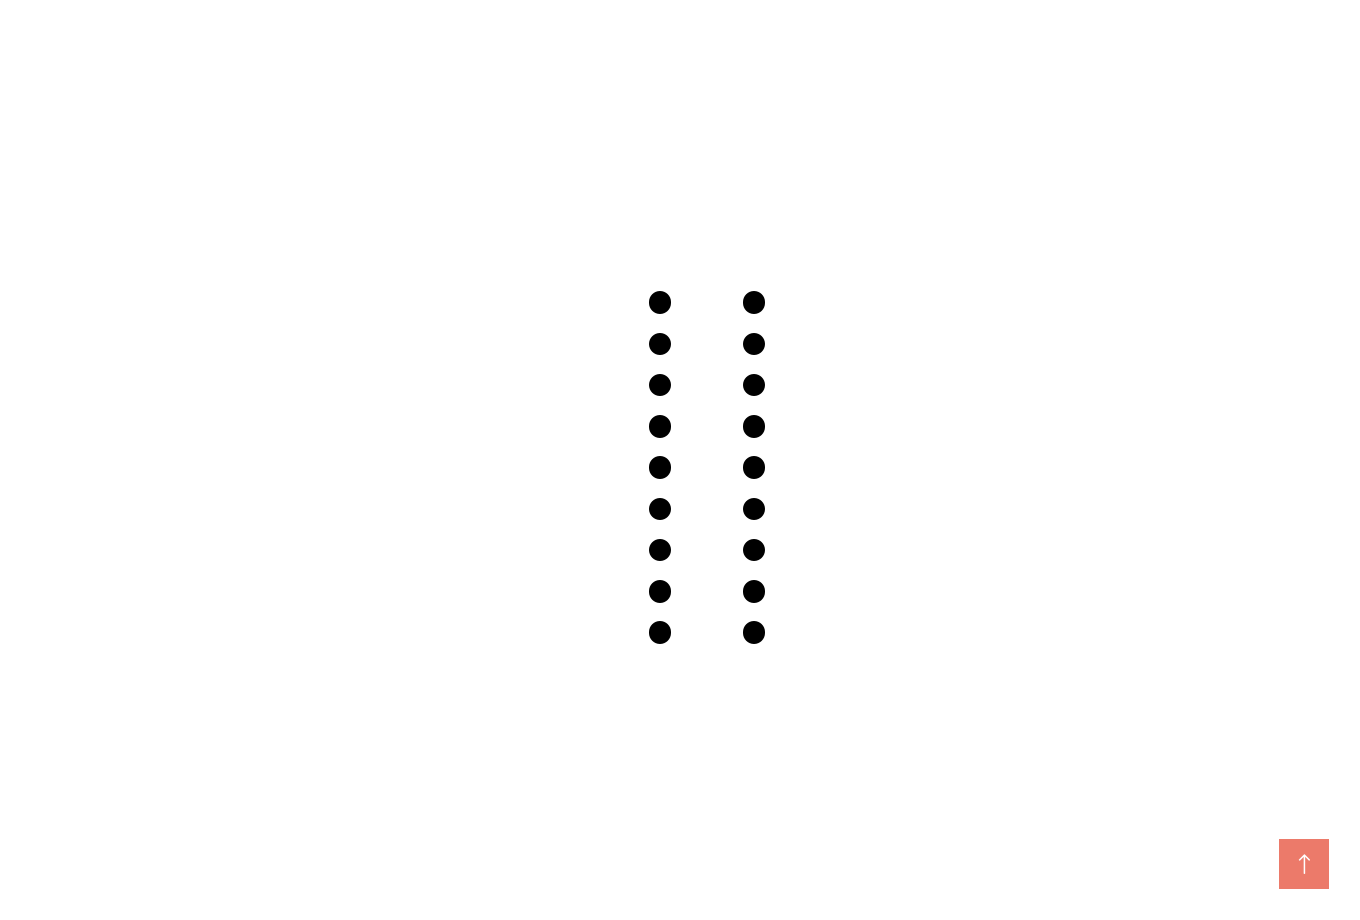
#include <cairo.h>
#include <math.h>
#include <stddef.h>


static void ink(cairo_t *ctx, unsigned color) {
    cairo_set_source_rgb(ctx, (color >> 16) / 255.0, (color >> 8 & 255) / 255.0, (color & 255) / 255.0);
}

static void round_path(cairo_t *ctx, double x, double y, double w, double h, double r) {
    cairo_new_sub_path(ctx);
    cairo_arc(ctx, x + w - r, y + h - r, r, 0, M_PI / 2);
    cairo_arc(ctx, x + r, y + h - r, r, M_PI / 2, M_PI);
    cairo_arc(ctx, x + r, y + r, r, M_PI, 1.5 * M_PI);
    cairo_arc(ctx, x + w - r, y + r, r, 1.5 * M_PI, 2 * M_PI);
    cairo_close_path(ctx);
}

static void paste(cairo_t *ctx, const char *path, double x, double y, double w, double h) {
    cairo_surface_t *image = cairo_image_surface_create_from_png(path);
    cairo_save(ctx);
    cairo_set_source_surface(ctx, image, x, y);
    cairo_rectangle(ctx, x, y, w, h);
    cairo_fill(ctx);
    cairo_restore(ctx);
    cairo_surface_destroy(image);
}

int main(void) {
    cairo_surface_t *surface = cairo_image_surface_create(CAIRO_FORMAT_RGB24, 1360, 920);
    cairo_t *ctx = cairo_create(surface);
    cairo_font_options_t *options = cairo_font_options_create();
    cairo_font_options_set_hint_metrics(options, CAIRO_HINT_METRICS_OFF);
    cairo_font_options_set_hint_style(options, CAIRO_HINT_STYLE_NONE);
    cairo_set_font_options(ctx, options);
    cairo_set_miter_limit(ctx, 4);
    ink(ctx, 0xFFFFFF);
    cairo_paint(ctx);
    ink(ctx, 0x000000);
    round_path(ctx, 649, 291, 22, 23, 11);
    cairo_fill(ctx);
    cairo_arc(ctx, 660, 344, 11, 0, 2 * M_PI);
    cairo_fill(ctx);
    cairo_arc(ctx, 660, 385, 11, 0, 2 * M_PI);
    cairo_fill(ctx);
    round_path(ctx, 649, 415, 22, 23, 11);
    cairo_fill(ctx);
    round_path(ctx, 649, 456, 22, 23, 11);
    cairo_fill(ctx);
    cairo_arc(ctx, 660, 509, 11, 0, 2 * M_PI);
    cairo_fill(ctx);
    cairo_arc(ctx, 660, 550, 11, 0, 2 * M_PI);
    cairo_fill(ctx);
    round_path(ctx, 649, 580, 22, 23, 11);
    cairo_fill(ctx);
    round_path(ctx, 649, 621, 22, 23, 11);
    cairo_fill(ctx);
    round_path(ctx, 743, 291, 22, 23, 11);
    cairo_fill(ctx);
    cairo_arc(ctx, 754, 344, 11, 0, 2 * M_PI);
    cairo_fill(ctx);
    cairo_arc(ctx, 754, 385, 11, 0, 2 * M_PI);
    cairo_fill(ctx);
    round_path(ctx, 743, 415, 22, 23, 11);
    cairo_fill(ctx);
    round_path(ctx, 743, 456, 22, 23, 11);
    cairo_fill(ctx);
    cairo_arc(ctx, 754, 509, 11, 0, 2 * M_PI);
    cairo_fill(ctx);
    cairo_arc(ctx, 754, 550, 11, 0, 2 * M_PI);
    cairo_fill(ctx);
    round_path(ctx, 743, 580, 22, 23, 11);
    cairo_fill(ctx);
    round_path(ctx, 743, 621, 22, 23, 11);
    cairo_fill(ctx);
    ink(ctx, 0xEC7A6A);
    cairo_rectangle(ctx, 1279, 839, 50, 50);
    cairo_fill(ctx);
    paste(ctx, "media/1.png", 1298, 854, 12, 20);
    cairo_surface_write_to_png(surface, "image.png");
    cairo_font_options_destroy(options);
    cairo_destroy(ctx);
    cairo_surface_destroy(surface);
    return 0;
}
